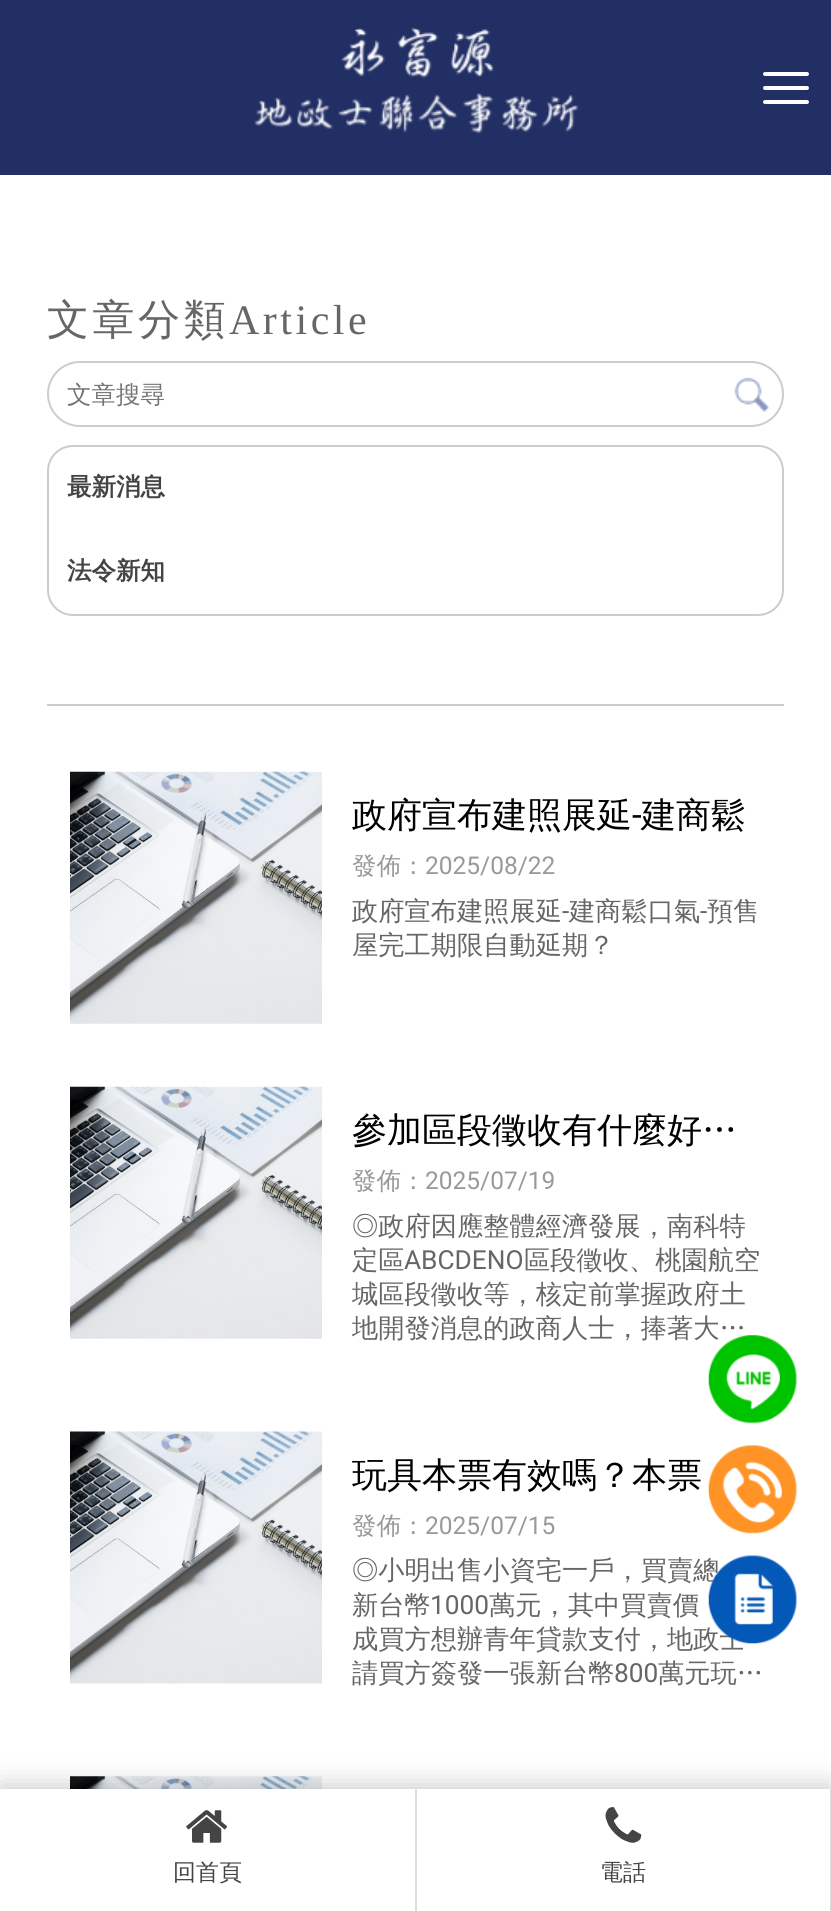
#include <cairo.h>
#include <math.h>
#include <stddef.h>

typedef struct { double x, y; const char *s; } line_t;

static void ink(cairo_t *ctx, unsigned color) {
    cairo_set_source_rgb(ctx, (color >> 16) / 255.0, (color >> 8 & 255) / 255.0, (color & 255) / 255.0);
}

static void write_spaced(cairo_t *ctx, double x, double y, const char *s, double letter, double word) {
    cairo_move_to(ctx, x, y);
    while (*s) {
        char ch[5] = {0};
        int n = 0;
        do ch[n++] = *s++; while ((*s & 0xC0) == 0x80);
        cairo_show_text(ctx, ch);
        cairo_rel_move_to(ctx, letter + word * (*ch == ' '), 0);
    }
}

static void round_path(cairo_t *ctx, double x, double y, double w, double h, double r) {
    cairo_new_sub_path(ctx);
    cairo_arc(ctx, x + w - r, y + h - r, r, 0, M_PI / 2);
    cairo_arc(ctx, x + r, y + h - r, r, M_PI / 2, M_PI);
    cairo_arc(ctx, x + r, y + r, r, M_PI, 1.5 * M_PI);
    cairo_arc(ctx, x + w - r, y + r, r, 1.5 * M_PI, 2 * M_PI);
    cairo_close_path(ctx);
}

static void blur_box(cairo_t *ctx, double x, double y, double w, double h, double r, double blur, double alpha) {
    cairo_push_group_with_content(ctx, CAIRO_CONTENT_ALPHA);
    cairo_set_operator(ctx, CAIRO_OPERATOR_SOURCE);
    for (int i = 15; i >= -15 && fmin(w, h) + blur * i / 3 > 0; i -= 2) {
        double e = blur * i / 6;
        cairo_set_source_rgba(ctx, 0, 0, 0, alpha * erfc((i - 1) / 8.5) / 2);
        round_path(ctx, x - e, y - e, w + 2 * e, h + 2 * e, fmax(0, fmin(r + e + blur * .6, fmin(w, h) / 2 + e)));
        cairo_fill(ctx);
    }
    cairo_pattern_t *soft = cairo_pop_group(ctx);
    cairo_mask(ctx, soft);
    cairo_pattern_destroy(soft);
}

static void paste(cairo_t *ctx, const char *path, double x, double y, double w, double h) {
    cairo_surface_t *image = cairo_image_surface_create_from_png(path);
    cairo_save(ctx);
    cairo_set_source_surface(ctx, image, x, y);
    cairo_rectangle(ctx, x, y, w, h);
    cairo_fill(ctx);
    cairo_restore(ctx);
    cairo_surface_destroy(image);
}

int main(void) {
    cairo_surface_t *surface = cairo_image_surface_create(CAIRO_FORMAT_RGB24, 831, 1911);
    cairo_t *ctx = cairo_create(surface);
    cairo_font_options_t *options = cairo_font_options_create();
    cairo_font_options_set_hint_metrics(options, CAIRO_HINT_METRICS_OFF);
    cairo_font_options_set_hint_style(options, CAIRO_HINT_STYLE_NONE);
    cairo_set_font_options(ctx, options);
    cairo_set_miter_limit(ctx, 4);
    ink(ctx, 0xFFFFFF);
    cairo_paint(ctx);
    ink(ctx, 0x222F65);
    cairo_rectangle(ctx, 0, 0, 831, 175);
    cairo_fill(ctx);
    paste(ctx, "media/1.png", 254, 28, 325, 106);
    ink(ctx, 0xFFFFFF);
    round_path(ctx, 763, 100, 46, 4, 2);
    cairo_fill(ctx);
    round_path(ctx, 763, 86, 46, 4, 2);
    cairo_fill(ctx);
    round_path(ctx, 763, 72, 46, 4, 2);
    cairo_fill(ctx);
    cairo_select_font_face(ctx, "WenQuanYi Zen Hei Medium", CAIRO_FONT_SLANT_NORMAL, CAIRO_FONT_WEIGHT_NORMAL);
    cairo_set_font_size(ctx, 42);
    ink(ctx, 0x666666);
    write_spaced(ctx, 47, 334, "文章分類", 3.5, 0);
    cairo_select_font_face(ctx, "Liberation Serif", CAIRO_FONT_SLANT_NORMAL, CAIRO_FONT_WEIGHT_NORMAL);
    write_spaced(ctx, 229, 334, "Article", 3.5, 0);
    round_path(ctx, 48, 362, 735, 64, 32);
    ink(ctx, 0xCCCCCC);
    cairo_stroke(ctx);
    cairo_select_font_face(ctx, "WenQuanYi Zen Hei Medium", CAIRO_FONT_SLANT_NORMAL, CAIRO_FONT_WEIGHT_NORMAL);
    cairo_set_font_size(ctx, 24.5);
    ink(ctx, 0x757575);
    cairo_move_to(ctx, 67, 403);
    cairo_show_text(ctx, "文章搜尋");
    paste(ctx, "media/2.png", 734, 377, 35, 35);
    round_path(ctx, 48, 446, 735, 169, 25);
    ink(ctx, 0xCCCCCC);
    cairo_stroke(ctx);
    cairo_select_font_face(ctx, "WenQuanYi Zen Hei", CAIRO_FONT_SLANT_NORMAL, CAIRO_FONT_WEIGHT_BOLD);
    ink(ctx, 0x444444);
    cairo_move_to(ctx, 67, 495);
    cairo_show_text(ctx, "最新消息");
    cairo_move_to(ctx, 67, 579);
    cairo_show_text(ctx, "法令新知");
    ink(ctx, 0xCCCCCC);
    cairo_rectangle(ctx, 47, 704, 737, 2);
    cairo_fill(ctx);
    paste(ctx, "media/3.png", 70, 771, 252, 253);
    cairo_select_font_face(ctx, "WenQuanYi Zen Hei Medium", CAIRO_FONT_SLANT_NORMAL, CAIRO_FONT_WEIGHT_NORMAL);
    cairo_set_font_size(ctx, 35);
    ink(ctx, 0x000000);
    cairo_move_to(ctx, 352, 827);
    cairo_show_text(ctx, "政府宣布建照展延");
    cairo_select_font_face(ctx, "Roboto", CAIRO_FONT_SLANT_NORMAL, CAIRO_FONT_WEIGHT_NORMAL);
    cairo_move_to(ctx, 632, 827);
    cairo_show_text(ctx, "-");
    cairo_select_font_face(ctx, "WenQuanYi Zen Hei Medium", CAIRO_FONT_SLANT_NORMAL, CAIRO_FONT_WEIGHT_NORMAL);
    cairo_move_to(ctx, 641, 827);
    cairo_show_text(ctx, "建商鬆");
    cairo_set_font_size(ctx, 24.5);
    ink(ctx, 0x999999);
    cairo_move_to(ctx, 352, 874);
    cairo_show_text(ctx, "發佈：");
    cairo_select_font_face(ctx, "Roboto", CAIRO_FONT_SLANT_NORMAL, CAIRO_FONT_WEIGHT_NORMAL);
    cairo_move_to(ctx, 425, 874);
    cairo_show_text(ctx, "2025/08/22");
    cairo_select_font_face(ctx, "WenQuanYi Zen Hei Medium", CAIRO_FONT_SLANT_NORMAL, CAIRO_FONT_WEIGHT_NORMAL);
    cairo_set_font_size(ctx, 26.25);
    ink(ctx, 0x666666);
    cairo_move_to(ctx, 352, 920);
    cairo_show_text(ctx, "政府宣布建照展延");
    cairo_select_font_face(ctx, "Roboto", CAIRO_FONT_SLANT_NORMAL, CAIRO_FONT_WEIGHT_NORMAL);
    cairo_move_to(ctx, 562, 920);
    cairo_show_text(ctx, "-");
    cairo_select_font_face(ctx, "WenQuanYi Zen Hei Medium", CAIRO_FONT_SLANT_NORMAL, CAIRO_FONT_WEIGHT_NORMAL);
    cairo_move_to(ctx, 569, 920);
    cairo_show_text(ctx, "建商鬆口氣");
    cairo_select_font_face(ctx, "Roboto", CAIRO_FONT_SLANT_NORMAL, CAIRO_FONT_WEIGHT_NORMAL);
    cairo_move_to(ctx, 700, 920);
    cairo_show_text(ctx, "-");
    cairo_select_font_face(ctx, "WenQuanYi Zen Hei Medium", CAIRO_FONT_SLANT_NORMAL, CAIRO_FONT_WEIGHT_NORMAL);
    cairo_move_to(ctx, 707, 920);
    cairo_show_text(ctx, "預售");
    cairo_move_to(ctx, 352, 954);
    cairo_show_text(ctx, "屋完工期限自動延期？");
    paste(ctx, "media/3.png", 70, 1086, 252, 253);
    cairo_set_font_size(ctx, 35);
    ink(ctx, 0x000000);
    cairo_move_to(ctx, 352, 1142);
    cairo_show_text(ctx, "參加區段徵收有什麼好…");
    cairo_set_font_size(ctx, 24.5);
    ink(ctx, 0x999999);
    cairo_move_to(ctx, 352, 1189);
    cairo_show_text(ctx, "發佈：");
    cairo_select_font_face(ctx, "Roboto", CAIRO_FONT_SLANT_NORMAL, CAIRO_FONT_WEIGHT_NORMAL);
    cairo_move_to(ctx, 425, 1189);
    cairo_show_text(ctx, "2025/07/19");
    cairo_select_font_face(ctx, "WenQuanYi Zen Hei Medium", CAIRO_FONT_SLANT_NORMAL, CAIRO_FONT_WEIGHT_NORMAL);
    cairo_set_font_size(ctx, 26.25);
    ink(ctx, 0x666666);
    cairo_move_to(ctx, 352, 1235);
    cairo_show_text(ctx, "◎政府因應整體經濟發展，南科特");
    cairo_move_to(ctx, 352, 1269);
    cairo_show_text(ctx, "定區");
    cairo_select_font_face(ctx, "Roboto", CAIRO_FONT_SLANT_NORMAL, CAIRO_FONT_WEIGHT_NORMAL);
    cairo_move_to(ctx, 404, 1269);
    cairo_show_text(ctx, "ABCDENO");
    cairo_select_font_face(ctx, "WenQuanYi Zen Hei Medium", CAIRO_FONT_SLANT_NORMAL, CAIRO_FONT_WEIGHT_NORMAL);
    {
        static const line_t items[] = {
            {524, 1269, "區段徵收、桃園航空"},
            {352, 1303, "城區段徵收等，核定前掌握政府土"},
            {352, 1337, "地開發消息的政商人士，捧著大…"},
        };
        for (size_t i = 0; i < sizeof items / sizeof *items; i++) {
            cairo_move_to(ctx, items[i].x, items[i].y);
            cairo_show_text(ctx, items[i].s);
        }
    }
    paste(ctx, "media/4.png", 70, 1431, 252, 253);
    cairo_set_font_size(ctx, 35);
    ink(ctx, 0x000000);
    cairo_move_to(ctx, 352, 1487);
    cairo_show_text(ctx, "玩具本票有效嗎？本票");
    cairo_set_font_size(ctx, 24.5);
    ink(ctx, 0x999999);
    cairo_move_to(ctx, 352, 1534);
    cairo_show_text(ctx, "發佈：");
    cairo_select_font_face(ctx, "Roboto", CAIRO_FONT_SLANT_NORMAL, CAIRO_FONT_WEIGHT_NORMAL);
    cairo_move_to(ctx, 425, 1534);
    cairo_show_text(ctx, "2025/07/15");
    cairo_select_font_face(ctx, "WenQuanYi Zen Hei Medium", CAIRO_FONT_SLANT_NORMAL, CAIRO_FONT_WEIGHT_NORMAL);
    cairo_set_font_size(ctx, 26.25);
    ink(ctx, 0x666666);
    cairo_move_to(ctx, 352, 1579);
    cairo_show_text(ctx, "◎小明出售小資宅一戶，買賣總");
    cairo_move_to(ctx, 352, 1614);
    cairo_show_text(ctx, "新台幣");
    cairo_select_font_face(ctx, "Roboto", CAIRO_FONT_SLANT_NORMAL, CAIRO_FONT_WEIGHT_NORMAL);
    cairo_move_to(ctx, 430, 1614);
    cairo_show_text(ctx, "1000");
    cairo_select_font_face(ctx, "WenQuanYi Zen Hei Medium", CAIRO_FONT_SLANT_NORMAL, CAIRO_FONT_WEIGHT_NORMAL);
    {
        static const line_t items[] = {
            {489, 1614, "萬元，其中買賣價"},
            {352, 1648, "成買方想辦青年貸款支付，地政士"},
            {352, 1682, "請買方簽發一張新台幣"},
        };
        for (size_t i = 0; i < sizeof items / sizeof *items; i++) {
            cairo_move_to(ctx, items[i].x, items[i].y);
            cairo_show_text(ctx, items[i].s);
        }
    }
    cairo_select_font_face(ctx, "Roboto", CAIRO_FONT_SLANT_NORMAL, CAIRO_FONT_WEIGHT_NORMAL);
    cairo_move_to(ctx, 614, 1682);
    cairo_show_text(ctx, "800");
    cairo_select_font_face(ctx, "WenQuanYi Zen Hei Medium", CAIRO_FONT_SLANT_NORMAL, CAIRO_FONT_WEIGHT_NORMAL);
    cairo_move_to(ctx, 658, 1682);
    cairo_show_text(ctx, "萬元玩…");
    paste(ctx, "media/5.png", 70, 1776, 252, 13);
    paste(ctx, "media/6.png", 708, 1335, 89, 89);
    paste(ctx, "media/7.png", 708, 1445, 89, 89);
    paste(ctx, "media/8.png", 708, 1555, 89, 89);
    ink(ctx, 0x000000);
    blur_box(ctx, 0, 1785, 831, 123, 0, 13, 0.2);
    ink(ctx, 0xFFFFFF);
    cairo_rectangle(ctx, 0, 1789, 830, 122);
    cairo_fill(ctx);
    ink(ctx, 0xDDDDDD);
    cairo_rectangle(ctx, 415, 1789, 2, 122);
    cairo_fill(ctx);
    paste(ctx, "media/9.png", 186, 1810, 41, 33);
    cairo_set_font_size(ctx, 23);
    ink(ctx, 0x444444);
    cairo_move_to(ctx, 173, 1880);
    cairo_show_text(ctx, "回首頁");
    ink(ctx, 0xDDDDDD);
    cairo_rectangle(ctx, 830, 1789, 1, 122);
    cairo_fill(ctx);
    paste(ctx, "media/10.png", 605, 1807, 37, 36);
    ink(ctx, 0x444444);
    cairo_move_to(ctx, 600, 1880);
    cairo_show_text(ctx, "電話");
    cairo_surface_write_to_png(surface, "image.png");
    cairo_font_options_destroy(options);
    cairo_destroy(ctx);
    cairo_surface_destroy(surface);
    return 0;
}
